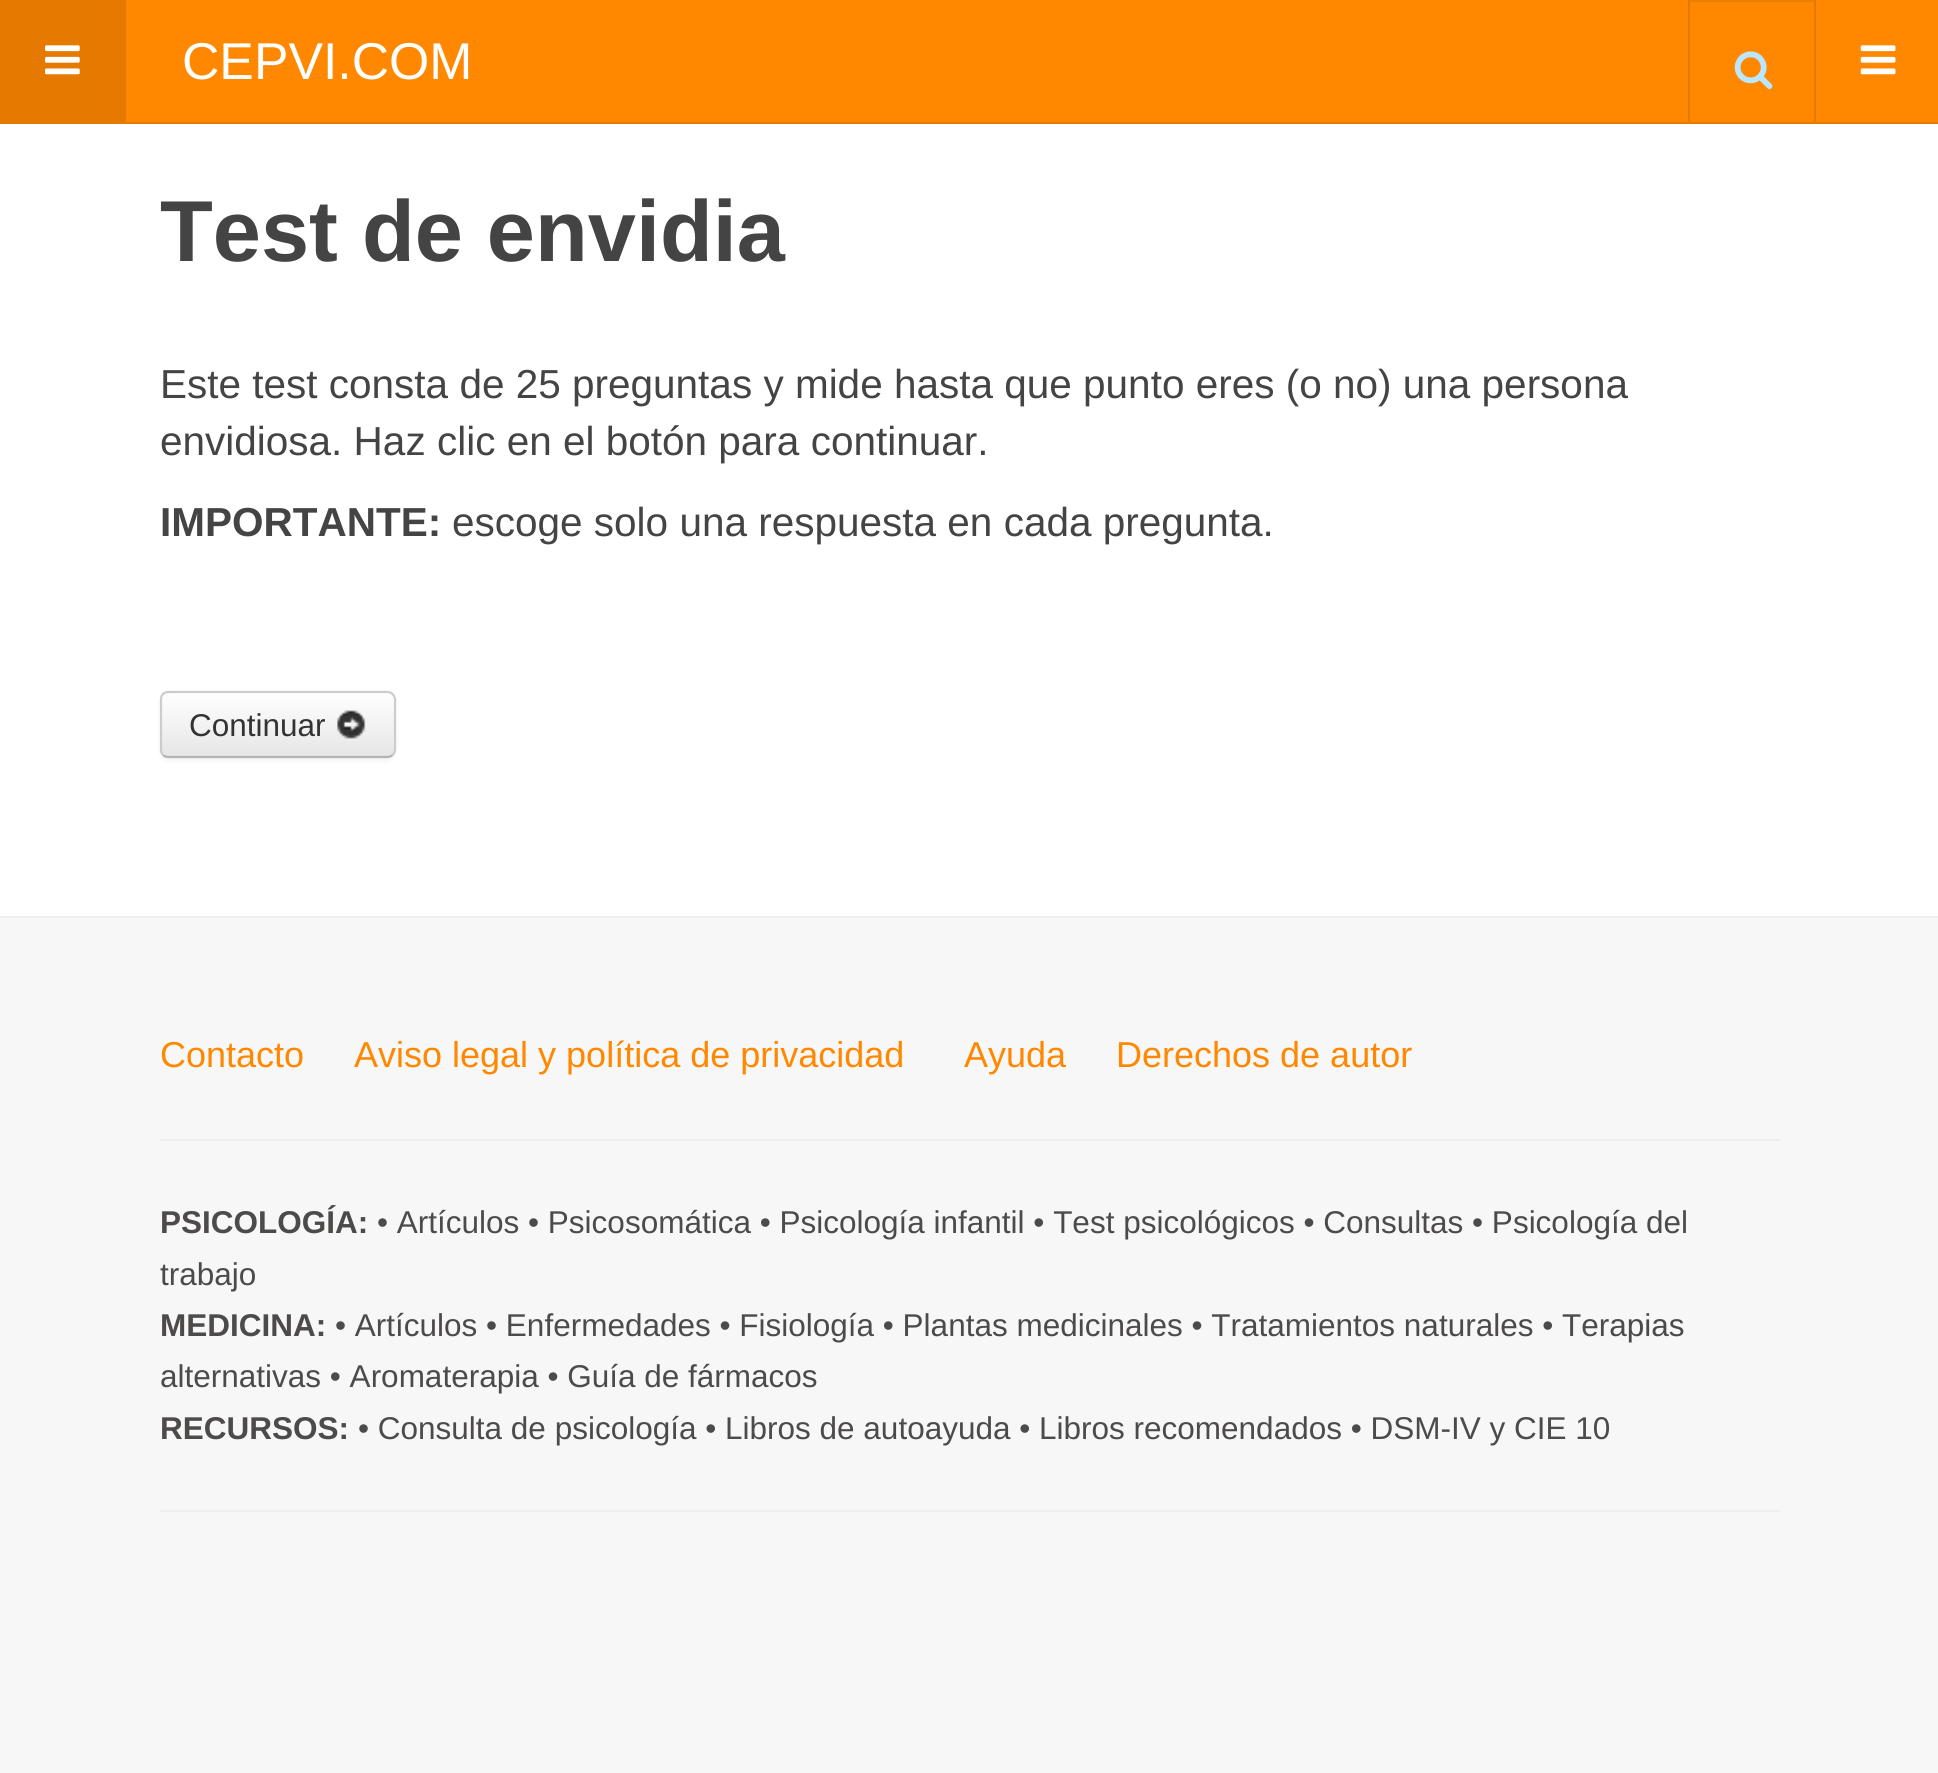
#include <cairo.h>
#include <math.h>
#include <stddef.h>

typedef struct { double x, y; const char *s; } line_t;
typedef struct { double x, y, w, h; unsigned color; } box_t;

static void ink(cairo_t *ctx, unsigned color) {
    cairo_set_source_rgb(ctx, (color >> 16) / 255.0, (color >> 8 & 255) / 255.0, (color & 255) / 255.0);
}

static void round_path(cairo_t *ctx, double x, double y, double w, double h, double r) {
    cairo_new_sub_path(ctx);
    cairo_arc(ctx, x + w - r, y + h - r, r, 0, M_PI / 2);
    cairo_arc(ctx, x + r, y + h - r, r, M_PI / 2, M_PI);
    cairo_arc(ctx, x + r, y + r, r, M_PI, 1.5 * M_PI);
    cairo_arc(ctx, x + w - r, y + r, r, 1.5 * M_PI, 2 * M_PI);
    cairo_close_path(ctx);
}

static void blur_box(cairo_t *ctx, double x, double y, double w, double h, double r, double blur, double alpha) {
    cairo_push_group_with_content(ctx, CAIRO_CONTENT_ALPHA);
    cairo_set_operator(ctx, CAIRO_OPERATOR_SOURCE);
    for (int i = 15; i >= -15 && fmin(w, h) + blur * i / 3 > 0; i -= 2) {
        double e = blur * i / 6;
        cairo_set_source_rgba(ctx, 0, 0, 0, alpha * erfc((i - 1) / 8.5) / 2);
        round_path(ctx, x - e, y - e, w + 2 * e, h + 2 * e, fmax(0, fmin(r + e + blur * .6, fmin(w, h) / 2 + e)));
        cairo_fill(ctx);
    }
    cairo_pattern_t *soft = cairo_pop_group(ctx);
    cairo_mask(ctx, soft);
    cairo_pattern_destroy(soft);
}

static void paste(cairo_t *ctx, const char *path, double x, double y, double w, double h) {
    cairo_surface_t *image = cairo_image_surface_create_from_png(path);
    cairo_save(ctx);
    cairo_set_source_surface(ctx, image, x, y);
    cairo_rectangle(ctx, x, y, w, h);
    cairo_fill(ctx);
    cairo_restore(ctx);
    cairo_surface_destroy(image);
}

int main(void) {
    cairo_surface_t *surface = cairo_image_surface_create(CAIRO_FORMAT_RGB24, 1938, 1773);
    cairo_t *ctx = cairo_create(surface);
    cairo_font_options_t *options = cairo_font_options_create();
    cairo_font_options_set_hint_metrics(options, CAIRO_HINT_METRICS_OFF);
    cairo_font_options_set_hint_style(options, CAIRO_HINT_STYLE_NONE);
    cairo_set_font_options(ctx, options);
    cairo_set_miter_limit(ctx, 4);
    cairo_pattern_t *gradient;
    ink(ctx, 0xFFFFFF);
    cairo_paint(ctx);
    {
        static const box_t items[] = {
            {126, 0, 1812, 122, 0xFF8800},
            {126, 122, 1812, 2, 0xE67A00},
            {0, 0, 126, 124, 0xE67A00},
        };
        for (size_t i = 0; i < sizeof items / sizeof *items; i++) {
            ink(ctx, items[i].color);
            cairo_rectangle(ctx, items[i].x, items[i].y, items[i].w, items[i].h);
            cairo_fill(ctx);
        }
    }
    paste(ctx, "media/1.png", 45, 45, 35, 30);
    cairo_select_font_face(ctx, "Liberation Sans", CAIRO_FONT_SLANT_NORMAL, CAIRO_FONT_WEIGHT_NORMAL);
    cairo_set_font_size(ctx, 51.75);
    ink(ctx, 0xFFFFFF);
    cairo_move_to(ctx, 182, 79);
    cairo_show_text(ctx, "CEPVI.COM");
    {
        static const box_t items[] = {
            {1814, 0, 2, 122, 0xE67A00},
            {1688, 0, 2, 122, 0xE67A00},
            {1690, 0, 124, 2, 0xEC7E00},
        };
        for (size_t i = 0; i < sizeof items / sizeof *items; i++) {
            ink(ctx, items[i].color);
            cairo_rectangle(ctx, items[i].x, items[i].y, items[i].w, items[i].h);
            cairo_fill(ctx);
        }
    }
    paste(ctx, "media/2.png", 1734, 51, 39, 38);
    paste(ctx, "media/3.png", 1860, 45, 36, 30);
    cairo_select_font_face(ctx, "Liberation Sans", CAIRO_FONT_SLANT_NORMAL, CAIRO_FONT_WEIGHT_BOLD);
    cairo_set_font_size(ctx, 86.5);
    ink(ctx, 0x444444);
    cairo_move_to(ctx, 160, 261);
    cairo_show_text(ctx, "Test de envidia");
    cairo_select_font_face(ctx, "Liberation Sans", CAIRO_FONT_SLANT_NORMAL, CAIRO_FONT_WEIGHT_NORMAL);
    cairo_set_font_size(ctx, 40.5);
    cairo_move_to(ctx, 160, 398);
    cairo_show_text(ctx, "Este test consta de 25 preguntas y mide hasta que punto eres (o no) una persona");
    cairo_move_to(ctx, 160, 455);
    cairo_show_text(ctx, "envidiosa. Haz clic en el botón para continuar.");
    cairo_select_font_face(ctx, "Liberation Sans", CAIRO_FONT_SLANT_NORMAL, CAIRO_FONT_WEIGHT_BOLD);
    cairo_move_to(ctx, 160, 536);
    cairo_show_text(ctx, "IMPORTANTE:");
    cairo_select_font_face(ctx, "Liberation Sans", CAIRO_FONT_SLANT_NORMAL, CAIRO_FONT_WEIGHT_NORMAL);
    cairo_move_to(ctx, 452, 536);
    cairo_show_text(ctx, "escoge solo una respuesta en cada pregunta.");
    ink(ctx, 0x000000);
    blur_box(ctx, 160, 693, 236, 68, 9, 2, 0.05);
    cairo_save(ctx);
    round_path(ctx, 160, 691, 236, 67, 9);
    cairo_clip(ctx);
    gradient = cairo_pattern_create_linear(278, 693, 278, 756);
    cairo_pattern_add_color_stop_rgba(gradient, 0, 1, 1, 1, 1);
    cairo_pattern_add_color_stop_rgba(gradient, 1, 0.902, 0.902, 0.902, 1);
    cairo_set_source(ctx, gradient);
    cairo_pattern_destroy(gradient);
    cairo_rectangle(ctx, 160, 693, 236, 63);
    cairo_fill(ctx);
    cairo_restore(ctx);
    cairo_new_path(ctx);
    cairo_move_to(ctx, 392.5, 755);
    cairo_curve_to(ctx, 391, 756.5, 389, 757, 387, 757);
    cairo_line_to(ctx, 169, 757);
    cairo_curve_to(ctx, 166.5, 757, 164.5, 756.5, 163, 755);
    ink(ctx, 0xB3B3B3);
    cairo_set_line_width(ctx, 2.2);
    cairo_stroke(ctx);
    cairo_new_path(ctx);
    cairo_move_to(ctx, 163, 755);
    cairo_curve_to(ctx, 161.5, 753.5, 161, 751.5, 161, 749);
    cairo_line_to(ctx, 161, 700);
    cairo_curve_to(ctx, 161, 697.5, 161.5, 695.5, 163, 694);
    cairo_curve_to(ctx, 164.5, 692.5, 166.5, 692, 169, 692);
    cairo_line_to(ctx, 387, 692);
    cairo_curve_to(ctx, 389, 692, 391, 692.5, 392.5, 694);
    cairo_curve_to(ctx, 394, 695.5, 395, 697.5, 395, 700);
    cairo_line_to(ctx, 395, 749);
    cairo_curve_to(ctx, 395, 751.5, 394, 753.5, 392.5, 755);
    ink(ctx, 0xCCCCCC);
    cairo_stroke(ctx);
    cairo_set_font_size(ctx, 31.5);
    ink(ctx, 0x333333);
    cairo_move_to(ctx, 189, 736);
    cairo_show_text(ctx, "Continuar");
    paste(ctx, "media/4.png", 337, 710, 29, 30);
    ink(ctx, 0xF7F7F7);
    cairo_rectangle(ctx, 0, 918, 1938, 855);
    cairo_fill(ctx);
    ink(ctx, 0xEEEEEE);
    cairo_rectangle(ctx, 0, 916, 1938, 2);
    cairo_fill(ctx);
    cairo_set_font_size(ctx, 36);
    ink(ctx, 0xFF8800);
    {
        static const line_t items[] = {
            {160, 1067, "Contacto"},
            {354, 1067, "Aviso legal y política de privacidad"},
            {964, 1067, "Ayuda"},
            {1116, 1067, "Derechos de autor"},
        };
        for (size_t i = 0; i < sizeof items / sizeof *items; i++) {
            cairo_move_to(ctx, items[i].x, items[i].y);
            cairo_show_text(ctx, items[i].s);
        }
    }
    ink(ctx, 0xEEEEEE);
    cairo_rectangle(ctx, 160, 1139, 1620, 2);
    cairo_fill(ctx);
    cairo_select_font_face(ctx, "Liberation Sans", CAIRO_FONT_SLANT_NORMAL, CAIRO_FONT_WEIGHT_BOLD);
    cairo_set_font_size(ctx, 31.5);
    ink(ctx, 0x4D4A4A);
    cairo_move_to(ctx, 160, 1233);
    cairo_show_text(ctx, "PSICOLOGÍA:");
    cairo_select_font_face(ctx, "Liberation Sans", CAIRO_FONT_SLANT_NORMAL, CAIRO_FONT_WEIGHT_NORMAL);
    cairo_move_to(ctx, 377, 1233);
    cairo_show_text(ctx, "• Artículos • Psicosomática • Psicología infantil • Test psicológicos • Consultas • Psicología del");
    cairo_move_to(ctx, 160, 1285);
    cairo_show_text(ctx, "trabajo");
    cairo_select_font_face(ctx, "Liberation Sans", CAIRO_FONT_SLANT_NORMAL, CAIRO_FONT_WEIGHT_BOLD);
    cairo_move_to(ctx, 160, 1336);
    cairo_show_text(ctx, "MEDICINA:");
    cairo_select_font_face(ctx, "Liberation Sans", CAIRO_FONT_SLANT_NORMAL, CAIRO_FONT_WEIGHT_NORMAL);
    cairo_move_to(ctx, 335, 1336);
    cairo_show_text(ctx, "• Artículos • Enfermedades • Fisiología • Plantas medicinales • Tratamientos naturales • Terapias");
    cairo_move_to(ctx, 160, 1387);
    cairo_show_text(ctx, "alternativas • Aromaterapia • Guía de fármacos");
    cairo_select_font_face(ctx, "Liberation Sans", CAIRO_FONT_SLANT_NORMAL, CAIRO_FONT_WEIGHT_BOLD);
    cairo_move_to(ctx, 160, 1439);
    cairo_show_text(ctx, "RECURSOS:");
    cairo_select_font_face(ctx, "Liberation Sans", CAIRO_FONT_SLANT_NORMAL, CAIRO_FONT_WEIGHT_NORMAL);
    cairo_move_to(ctx, 358, 1439);
    cairo_show_text(ctx, "• Consulta de psicología • Libros de autoayuda • Libros recomendados • DSM-IV y CIE 10");
    ink(ctx, 0xEEEEEE);
    cairo_rectangle(ctx, 160, 1510, 1620, 2);
    cairo_fill(ctx);
    cairo_surface_write_to_png(surface, "image.png");
    cairo_font_options_destroy(options);
    cairo_destroy(ctx);
    cairo_surface_destroy(surface);
    return 0;
}
